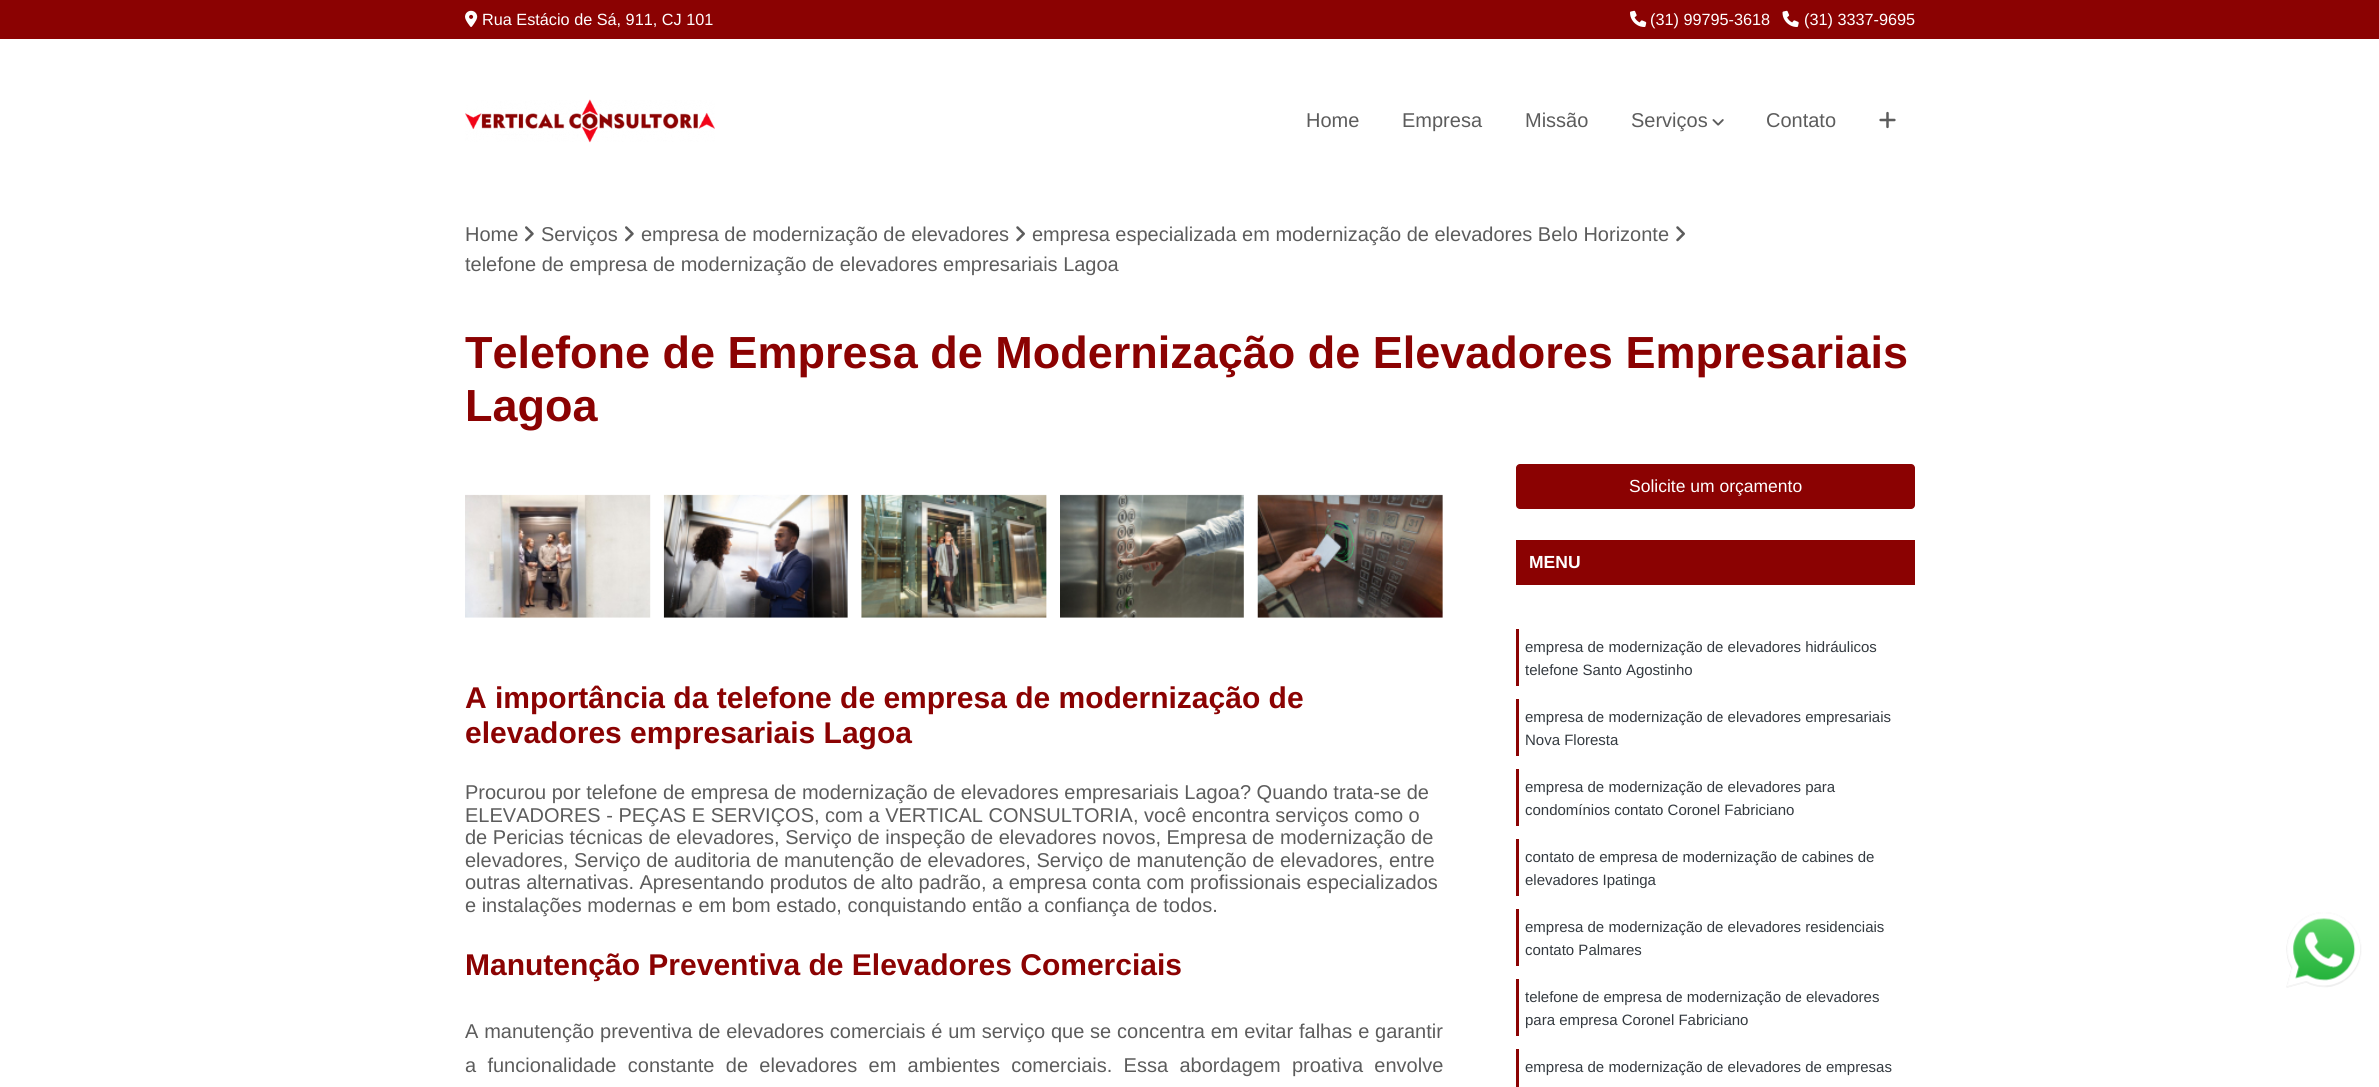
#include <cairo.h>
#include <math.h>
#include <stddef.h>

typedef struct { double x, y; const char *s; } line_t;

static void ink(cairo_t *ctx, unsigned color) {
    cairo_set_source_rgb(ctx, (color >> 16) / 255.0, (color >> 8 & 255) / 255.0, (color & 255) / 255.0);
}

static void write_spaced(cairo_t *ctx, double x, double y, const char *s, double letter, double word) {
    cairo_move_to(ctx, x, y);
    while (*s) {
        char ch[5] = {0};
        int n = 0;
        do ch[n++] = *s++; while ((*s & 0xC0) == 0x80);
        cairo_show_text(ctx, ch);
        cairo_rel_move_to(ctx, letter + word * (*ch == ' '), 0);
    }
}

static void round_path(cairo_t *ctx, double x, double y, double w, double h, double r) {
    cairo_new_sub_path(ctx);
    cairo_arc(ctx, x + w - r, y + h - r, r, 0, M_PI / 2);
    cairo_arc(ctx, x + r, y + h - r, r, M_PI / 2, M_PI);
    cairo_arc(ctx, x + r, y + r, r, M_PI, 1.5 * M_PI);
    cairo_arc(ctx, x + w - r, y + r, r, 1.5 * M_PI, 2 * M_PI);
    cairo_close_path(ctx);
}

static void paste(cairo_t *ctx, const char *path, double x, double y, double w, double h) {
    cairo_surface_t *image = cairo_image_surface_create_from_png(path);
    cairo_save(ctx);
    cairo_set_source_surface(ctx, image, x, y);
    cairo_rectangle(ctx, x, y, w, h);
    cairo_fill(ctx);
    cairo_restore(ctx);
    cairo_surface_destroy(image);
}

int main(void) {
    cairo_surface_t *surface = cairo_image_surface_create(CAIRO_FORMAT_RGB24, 2379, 1087);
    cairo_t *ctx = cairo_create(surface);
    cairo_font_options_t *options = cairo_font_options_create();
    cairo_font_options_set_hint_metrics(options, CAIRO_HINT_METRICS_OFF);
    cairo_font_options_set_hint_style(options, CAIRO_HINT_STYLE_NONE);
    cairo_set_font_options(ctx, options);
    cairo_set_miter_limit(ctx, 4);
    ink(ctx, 0xFFFFFF);
    cairo_paint(ctx);
    ink(ctx, 0x8B0202);
    cairo_rectangle(ctx, 0, 0, 2379, 39);
    cairo_fill(ctx);
    paste(ctx, "media/1.png", 465, 10, 13, 17);
    cairo_select_font_face(ctx, "Liberation Sans", CAIRO_FONT_SLANT_NORMAL, CAIRO_FONT_WEIGHT_NORMAL);
    cairo_set_font_size(ctx, 16.25);
    ink(ctx, 0xFFFFFF);
    cairo_move_to(ctx, 482, 25);
    cairo_show_text(ctx, "Rua Estácio de Sá, 911, CJ 101");
    paste(ctx, "media/2.png", 1630, 10, 17, 17);
    cairo_move_to(ctx, 1650, 25);
    cairo_show_text(ctx, "(31) 99795-3618");
    paste(ctx, "media/3.png", 1782, 10, 17, 17);
    cairo_move_to(ctx, 1804, 25);
    cairo_show_text(ctx, "(31) 3337-9695");
    paste(ctx, "media/4.png", 465, 99, 250, 44);
    cairo_set_font_size(ctx, 20);
    ink(ctx, 0x5C5C5C);
    {
        static const line_t items[] = {
            {1306, 127, "Home"},
            {1402, 127, "Empresa"},
            {1525, 127, "Missão"},
            {1631, 127, "Serviços"},
        };
        for (size_t i = 0; i < sizeof items / sizeof *items; i++) {
            cairo_move_to(ctx, items[i].x, items[i].y);
            cairo_show_text(ctx, items[i].s);
        }
    }
    paste(ctx, "media/5.png", 1712, 119, 12, 7);
    cairo_move_to(ctx, 1766, 127);
    cairo_show_text(ctx, "Contato");
    paste(ctx, "media/6.png", 1879, 111, 17, 18);
    cairo_move_to(ctx, 465, 241);
    cairo_show_text(ctx, "Home");
    paste(ctx, "media/7.png", 525, 226, 9, 16);
    cairo_move_to(ctx, 541, 241);
    cairo_show_text(ctx, "Serviços");
    paste(ctx, "media/7.png", 625, 226, 9, 16);
    cairo_move_to(ctx, 641, 241);
    cairo_show_text(ctx, "empresa de modernização de elevadores");
    paste(ctx, "media/8.png", 1016, 226, 9, 16);
    cairo_move_to(ctx, 1032, 241);
    cairo_show_text(ctx, "empresa especializada em modernização de elevadores Belo Horizonte");
    paste(ctx, "media/8.png", 1676, 226, 9, 16);
    cairo_move_to(ctx, 465, 271);
    cairo_show_text(ctx, "telefone de empresa de modernização de elevadores empresariais Lagoa");
    cairo_select_font_face(ctx, "Liberation Sans", CAIRO_FONT_SLANT_NORMAL, CAIRO_FONT_WEIGHT_BOLD);
    cairo_set_font_size(ctx, 45);
    ink(ctx, 0x8B0202);
    cairo_move_to(ctx, 465, 368);
    cairo_show_text(ctx, "Telefone de Empresa de Modernização de Elevadores Empresariais");
    cairo_move_to(ctx, 465, 421);
    cairo_show_text(ctx, "Lagoa");
    paste(ctx, "media/9.png", 465, 494, 186, 124);
    paste(ctx, "media/10.png", 663, 494, 185, 124);
    paste(ctx, "media/11.png", 861, 494, 186, 124);
    paste(ctx, "media/12.png", 1060, 494, 184, 124);
    paste(ctx, "media/13.png", 1257, 494, 186, 124);
    cairo_set_font_size(ctx, 30);
    cairo_move_to(ctx, 465, 708);
    cairo_show_text(ctx, "A importância da telefone de empresa de modernização de");
    cairo_move_to(ctx, 465, 743);
    cairo_show_text(ctx, "elevadores empresariais Lagoa");
    cairo_select_font_face(ctx, "Liberation Sans", CAIRO_FONT_SLANT_NORMAL, CAIRO_FONT_WEIGHT_NORMAL);
    cairo_set_font_size(ctx, 20);
    ink(ctx, 0x5C5C5C);
    {
        static const line_t items[] = {
            {465, 799, "Procurou por telefone de empresa de modernização de elevadores empresariais Lagoa? Quando trata-se de"},
            {465, 822, "ELEVADORES - PEÇAS E SERVIÇOS, com a VERTICAL CONSULTORIA, você encontra serviços como o"},
            {465, 844, "de Pericias técnicas de elevadores, Serviço de inspeção de elevadores novos, Empresa de modernização de"},
            {465, 867, "elevadores, Serviço de auditoria de manutenção de elevadores, Serviço de manutenção de elevadores, entre"},
            {465, 889, "outras alternativas. Apresentando produtos de alto padrão, a empresa conta com profissionais especializados"},
            {465, 912, "e instalações modernas e em bom estado, conquistando então a confiança de todos."},
        };
        for (size_t i = 0; i < sizeof items / sizeof *items; i++) {
            cairo_move_to(ctx, items[i].x, items[i].y);
            cairo_show_text(ctx, items[i].s);
        }
    }
    cairo_select_font_face(ctx, "Liberation Sans", CAIRO_FONT_SLANT_NORMAL, CAIRO_FONT_WEIGHT_BOLD);
    cairo_set_font_size(ctx, 30);
    ink(ctx, 0x8B0202);
    cairo_move_to(ctx, 465, 975);
    cairo_show_text(ctx, "Manutenção Preventiva de Elevadores Comerciais");
    cairo_select_font_face(ctx, "Liberation Sans", CAIRO_FONT_SLANT_NORMAL, CAIRO_FONT_WEIGHT_NORMAL);
    cairo_set_font_size(ctx, 20);
    ink(ctx, 0x5C5C5C);
    write_spaced(ctx, 465, 1038, "A manutenção preventiva de elevadores comerciais é um serviço que se concentra em evitar falhas e garantir", 0, 0.25);
    write_spaced(ctx, 465, 1072, "a funcionalidade constante de elevadores em ambientes comerciais. Essa abordagem proativa envolve", 0, 5.75);
    ink(ctx, 0x8B0202);
    round_path(ctx, 1516, 464, 399, 45, 4);
    cairo_fill(ctx);
    cairo_set_font_size(ctx, 17.5);
    ink(ctx, 0xFFFFFF);
    cairo_move_to(ctx, 1629, 492);
    cairo_show_text(ctx, "Solicite um orçamento");
    ink(ctx, 0x8B0202);
    cairo_rectangle(ctx, 1516, 540, 399, 45);
    cairo_fill(ctx);
    cairo_select_font_face(ctx, "Liberation Sans", CAIRO_FONT_SLANT_NORMAL, CAIRO_FONT_WEIGHT_BOLD);
    ink(ctx, 0xFFFFFF);
    cairo_move_to(ctx, 1529, 568);
    cairo_show_text(ctx, "MENU");
    ink(ctx, 0x8B0202);
    cairo_rectangle(ctx, 1516, 629, 3, 57);
    cairo_fill(ctx);
    cairo_select_font_face(ctx, "Liberation Sans", CAIRO_FONT_SLANT_NORMAL, CAIRO_FONT_WEIGHT_NORMAL);
    cairo_set_font_size(ctx, 15);
    ink(ctx, 0x343A40);
    cairo_move_to(ctx, 1525, 652);
    cairo_show_text(ctx, "empresa de modernização de elevadores hidráulicos");
    cairo_move_to(ctx, 1525, 675);
    cairo_show_text(ctx, "telefone Santo Agostinho");
    ink(ctx, 0x8B0202);
    cairo_rectangle(ctx, 1516, 699, 3, 57);
    cairo_fill(ctx);
    ink(ctx, 0x343A40);
    cairo_move_to(ctx, 1525, 722);
    cairo_show_text(ctx, "empresa de modernização de elevadores empresariais");
    cairo_move_to(ctx, 1525, 745);
    cairo_show_text(ctx, "Nova Floresta");
    ink(ctx, 0x8B0202);
    cairo_rectangle(ctx, 1516, 769, 3, 57);
    cairo_fill(ctx);
    ink(ctx, 0x343A40);
    cairo_move_to(ctx, 1525, 792);
    cairo_show_text(ctx, "empresa de modernização de elevadores para");
    cairo_move_to(ctx, 1525, 815);
    cairo_show_text(ctx, "condomínios contato Coronel Fabriciano");
    ink(ctx, 0x8B0202);
    cairo_rectangle(ctx, 1516, 839, 3, 57);
    cairo_fill(ctx);
    ink(ctx, 0x343A40);
    cairo_move_to(ctx, 1525, 862);
    cairo_show_text(ctx, "contato de empresa de modernização de cabines de");
    cairo_move_to(ctx, 1525, 885);
    cairo_show_text(ctx, "elevadores Ipatinga");
    ink(ctx, 0x8B0202);
    cairo_rectangle(ctx, 1516, 909, 3, 57);
    cairo_fill(ctx);
    ink(ctx, 0x343A40);
    cairo_move_to(ctx, 1525, 932);
    cairo_show_text(ctx, "empresa de modernização de elevadores residenciais");
    cairo_move_to(ctx, 1525, 955);
    cairo_show_text(ctx, "contato Palmares");
    ink(ctx, 0x8B0202);
    cairo_rectangle(ctx, 1516, 979, 3, 57);
    cairo_fill(ctx);
    ink(ctx, 0x343A40);
    cairo_move_to(ctx, 1525, 1002);
    cairo_show_text(ctx, "telefone de empresa de modernização de elevadores");
    cairo_move_to(ctx, 1525, 1025);
    cairo_show_text(ctx, "para empresa Coronel Fabriciano");
    ink(ctx, 0x8B0202);
    cairo_rectangle(ctx, 1516, 1049, 3, 38);
    cairo_fill(ctx);
    ink(ctx, 0x343A40);
    cairo_move_to(ctx, 1525, 1072);
    cairo_show_text(ctx, "empresa de modernização de elevadores de empresas");
    paste(ctx, "media/14.png", 2286, 912, 76, 76);
    cairo_surface_write_to_png(surface, "image.png");
    cairo_font_options_destroy(options);
    cairo_destroy(ctx);
    cairo_surface_destroy(surface);
    return 0;
}
